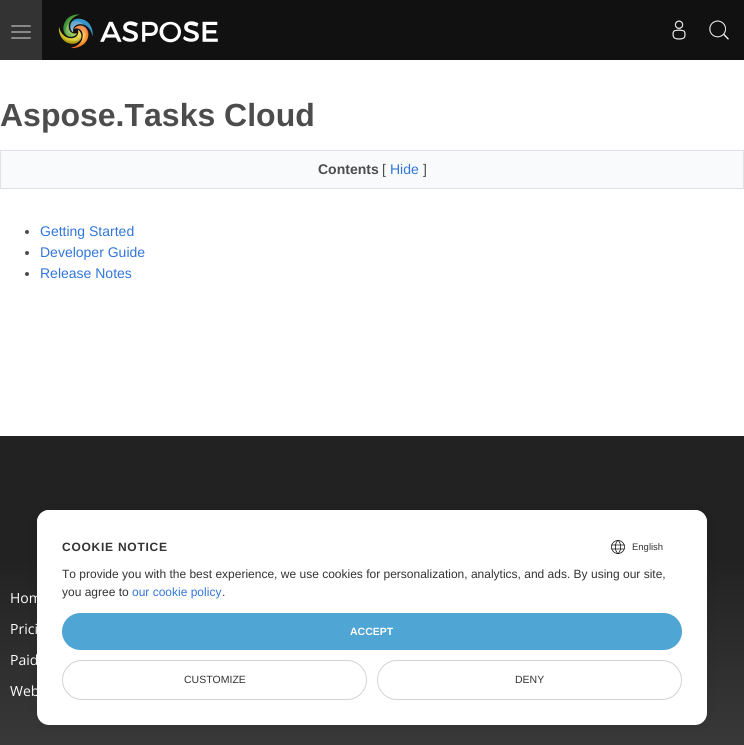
#include <cairo.h>
#include <math.h>
#include <stddef.h>

typedef struct { double x, y; const char *s; } line_t;

static void ink(cairo_t *ctx, unsigned color) {
    cairo_set_source_rgb(ctx, (color >> 16) / 255.0, (color >> 8 & 255) / 255.0, (color & 255) / 255.0);
}

static void write_spaced(cairo_t *ctx, double x, double y, const char *s, double letter, double word) {
    cairo_move_to(ctx, x, y);
    while (*s) {
        char ch[5] = {0};
        int n = 0;
        do ch[n++] = *s++; while ((*s & 0xC0) == 0x80);
        cairo_show_text(ctx, ch);
        cairo_rel_move_to(ctx, letter + word * (*ch == ' '), 0);
    }
}

static void round_path(cairo_t *ctx, double x, double y, double w, double h, double r) {
    cairo_new_sub_path(ctx);
    cairo_arc(ctx, x + w - r, y + h - r, r, 0, M_PI / 2);
    cairo_arc(ctx, x + r, y + h - r, r, M_PI / 2, M_PI);
    cairo_arc(ctx, x + r, y + r, r, M_PI, 1.5 * M_PI);
    cairo_arc(ctx, x + w - r, y + r, r, 1.5 * M_PI, 2 * M_PI);
    cairo_close_path(ctx);
}

static void blur_box(cairo_t *ctx, double x, double y, double w, double h, double r, double blur, double alpha) {
    cairo_push_group_with_content(ctx, CAIRO_CONTENT_ALPHA);
    cairo_set_operator(ctx, CAIRO_OPERATOR_SOURCE);
    for (int i = 15; i >= -15 && fmin(w, h) + blur * i / 3 > 0; i -= 2) {
        double e = blur * i / 6;
        cairo_set_source_rgba(ctx, 0, 0, 0, alpha * erfc((i - 1) / 8.5) / 2);
        round_path(ctx, x - e, y - e, w + 2 * e, h + 2 * e, fmax(0, fmin(r + e + blur * .6, fmin(w, h) / 2 + e)));
        cairo_fill(ctx);
    }
    cairo_pattern_t *soft = cairo_pop_group(ctx);
    cairo_mask(ctx, soft);
    cairo_pattern_destroy(soft);
}

static void paste(cairo_t *ctx, const char *path, double x, double y, double w, double h) {
    cairo_surface_t *image = cairo_image_surface_create_from_png(path);
    cairo_save(ctx);
    cairo_set_source_surface(ctx, image, x, y);
    cairo_rectangle(ctx, x, y, w, h);
    cairo_fill(ctx);
    cairo_restore(ctx);
    cairo_surface_destroy(image);
}

int main(void) {
    cairo_surface_t *surface = cairo_image_surface_create(CAIRO_FORMAT_RGB24, 744, 745);
    cairo_t *ctx = cairo_create(surface);
    cairo_font_options_t *options = cairo_font_options_create();
    cairo_font_options_set_hint_metrics(options, CAIRO_HINT_METRICS_OFF);
    cairo_font_options_set_hint_style(options, CAIRO_HINT_STYLE_NONE);
    cairo_set_font_options(ctx, options);
    cairo_set_miter_limit(ctx, 4);
    cairo_pattern_t *gradient;
    ink(ctx, 0xFFFFFF);
    cairo_paint(ctx);
    ink(ctx, 0x111111);
    cairo_rectangle(ctx, 42, 0, 702, 60);
    cairo_fill(ctx);
    ink(ctx, 0x333333);
    cairo_rectangle(ctx, 0, 0, 42, 60);
    cairo_fill(ctx);
    ink(ctx, 0x888888);
    round_path(ctx, 11, 25, 20, 2, 1);
    cairo_fill(ctx);
    round_path(ctx, 11, 31, 20, 2, 1);
    cairo_fill(ctx);
    round_path(ctx, 11, 37, 20, 2, 1);
    cairo_fill(ctx);
    paste(ctx, "media/1.png", 58, 14, 160, 35);
    paste(ctx, "media/2.png", 672, 20, 14, 20);
    paste(ctx, "media/3.png", 709, 20, 20, 20);
    cairo_select_font_face(ctx, "Liberation Sans", CAIRO_FONT_SLANT_NORMAL, CAIRO_FONT_WEIGHT_BOLD);
    cairo_set_font_size(ctx, 32);
    ink(ctx, 0x4C4C4C);
    cairo_move_to(ctx, 0, 126);
    cairo_show_text(ctx, "Aspose.Tasks Cloud");
    ink(ctx, 0xF9FAFC);
    cairo_rectangle(ctx, 0.5, 150.5, 743, 38);
    cairo_fill_preserve(ctx);
    ink(ctx, 0xDEE2E6);
    cairo_set_line_width(ctx, 1);
    cairo_stroke(ctx);
    cairo_set_font_size(ctx, 14);
    ink(ctx, 0x4C4C4C);
    cairo_move_to(ctx, 318, 174);
    cairo_show_text(ctx, "Contents");
    cairo_select_font_face(ctx, "Liberation Sans", CAIRO_FONT_SLANT_NORMAL, CAIRO_FONT_WEIGHT_NORMAL);
    cairo_move_to(ctx, 382, 174);
    cairo_show_text(ctx, "[");
    ink(ctx, 0x3176D9);
    cairo_move_to(ctx, 390, 174);
    cairo_show_text(ctx, "Hide");
    ink(ctx, 0x4C4C4C);
    cairo_move_to(ctx, 423, 174);
    cairo_show_text(ctx, "]");
    cairo_new_path(ctx);
    cairo_arc(ctx, 27, 232, 2, 0, 2 * M_PI);
    cairo_fill(ctx);
    ink(ctx, 0x3176D9);
    cairo_move_to(ctx, 40, 236);
    cairo_show_text(ctx, "Getting Started");
    ink(ctx, 0x4C4C4C);
    cairo_new_path(ctx);
    cairo_arc(ctx, 27, 253, 2, 0, 2 * M_PI);
    cairo_fill(ctx);
    ink(ctx, 0x3176D9);
    cairo_move_to(ctx, 40, 257);
    cairo_show_text(ctx, "Developer Guide");
    ink(ctx, 0x4C4C4C);
    cairo_new_path(ctx);
    cairo_arc(ctx, 27, 274, 2, 0, 2 * M_PI);
    cairo_fill(ctx);
    ink(ctx, 0x3176D9);
    cairo_move_to(ctx, 40, 278);
    cairo_show_text(ctx, "Release Notes");
    gradient = cairo_pattern_create_linear(372, 436, 372, 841);
    cairo_pattern_add_color_stop_rgba(gradient, 0.3, 0.133, 0.133, 0.133, 1);
    cairo_pattern_add_color_stop_rgba(gradient, 1, 0.267, 0.267, 0.267, 1);
    cairo_set_source(ctx, gradient);
    cairo_pattern_destroy(gradient);
    cairo_rectangle(ctx, 0, 436, 744, 309);
    cairo_fill(ctx);
    cairo_select_font_face(ctx, "Open Sans", CAIRO_FONT_SLANT_NORMAL, CAIRO_FONT_WEIGHT_NORMAL);
    ink(ctx, 0xFFFFFF);
    {
        static const line_t items[] = {
            {10, 603, "Hom"},
            {10, 634, "Prici"},
            {10, 665, "Paid"},
            {10, 696, "Web"},
        };
        for (size_t i = 0; i < sizeof items / sizeof *items; i++) {
            cairo_move_to(ctx, items[i].x, items[i].y);
            cairo_show_text(ctx, items[i].s);
        }
    }
    ink(ctx, 0x000000);
    blur_box(ctx, 37, 510, 670, 215, 12, 6.5, 0.1);
    ink(ctx, 0xFFFFFF);
    round_path(ctx, 37, 510, 670, 215, 12);
    cairo_fill(ctx);
    cairo_new_path(ctx);
    cairo_move_to(ctx, 49, 510);
    cairo_line_to(ctx, 695, 510);
    cairo_curve_to(ctx, 701.5, 510, 707, 515.5, 707, 522);
    cairo_line_to(ctx, 707, 560);
    cairo_line_to(ctx, 37, 560);
    cairo_line_to(ctx, 37, 522);
    cairo_curve_to(ctx, 37, 515.5, 42.5, 510, 49, 510);
    cairo_close_path(ctx);
    cairo_fill(ctx);
    cairo_select_font_face(ctx, "Liberation Sans", CAIRO_FONT_SLANT_NORMAL, CAIRO_FONT_WEIGHT_BOLD);
    cairo_set_font_size(ctx, 12);
    ink(ctx, 0x333333);
    write_spaced(ctx, 62, 551, "COOKIE NOTICE", 0.75, 0);
    paste(ctx, "media/4.png", 611, 540, 14, 14);
    cairo_select_font_face(ctx, "Liberation Sans", CAIRO_FONT_SLANT_NORMAL, CAIRO_FONT_WEIGHT_NORMAL);
    cairo_set_font_size(ctx, 9.5);
    cairo_move_to(ctx, 632, 550);
    cairo_show_text(ctx, "English");
    cairo_set_font_size(ctx, 12);
    cairo_move_to(ctx, 62, 578);
    cairo_show_text(ctx, "To provide you with the best experience, we use cookies for personalization, analytics, and ads. By using our site,");
    cairo_move_to(ctx, 62, 596);
    cairo_show_text(ctx, "you agree to");
    ink(ctx, 0x3176D9);
    cairo_move_to(ctx, 132, 596);
    cairo_show_text(ctx, "our cookie policy");
    ink(ctx, 0x333333);
    cairo_move_to(ctx, 222, 596);
    cairo_show_text(ctx, ".");
    ink(ctx, 0x4FA5D3);
    round_path(ctx, 62, 613, 620, 37, 18.5);
    cairo_fill(ctx);
    cairo_select_font_face(ctx, "Liberation Sans", CAIRO_FONT_SLANT_NORMAL, CAIRO_FONT_WEIGHT_BOLD);
    cairo_set_font_size(ctx, 10.5);
    ink(ctx, 0xFFFFFF);
    cairo_move_to(ctx, 350, 635);
    cairo_show_text(ctx, "ACCEPT");
    round_path(ctx, 62.5, 660.5, 304, 39, 19.5);
    ink(ctx, 0xD3D3D3);
    cairo_stroke(ctx);
    cairo_select_font_face(ctx, "Liberation Sans", CAIRO_FONT_SLANT_NORMAL, CAIRO_FONT_WEIGHT_NORMAL);
    ink(ctx, 0x333333);
    cairo_move_to(ctx, 184, 683);
    cairo_show_text(ctx, "CUSTOMIZE");
    round_path(ctx, 377.5, 660.5, 304, 39, 19.5);
    ink(ctx, 0xD3D3D3);
    cairo_stroke(ctx);
    ink(ctx, 0x333333);
    cairo_move_to(ctx, 515, 683);
    cairo_show_text(ctx, "DENY");
    cairo_surface_write_to_png(surface, "image.png");
    cairo_font_options_destroy(options);
    cairo_destroy(ctx);
    cairo_surface_destroy(surface);
    return 0;
}
